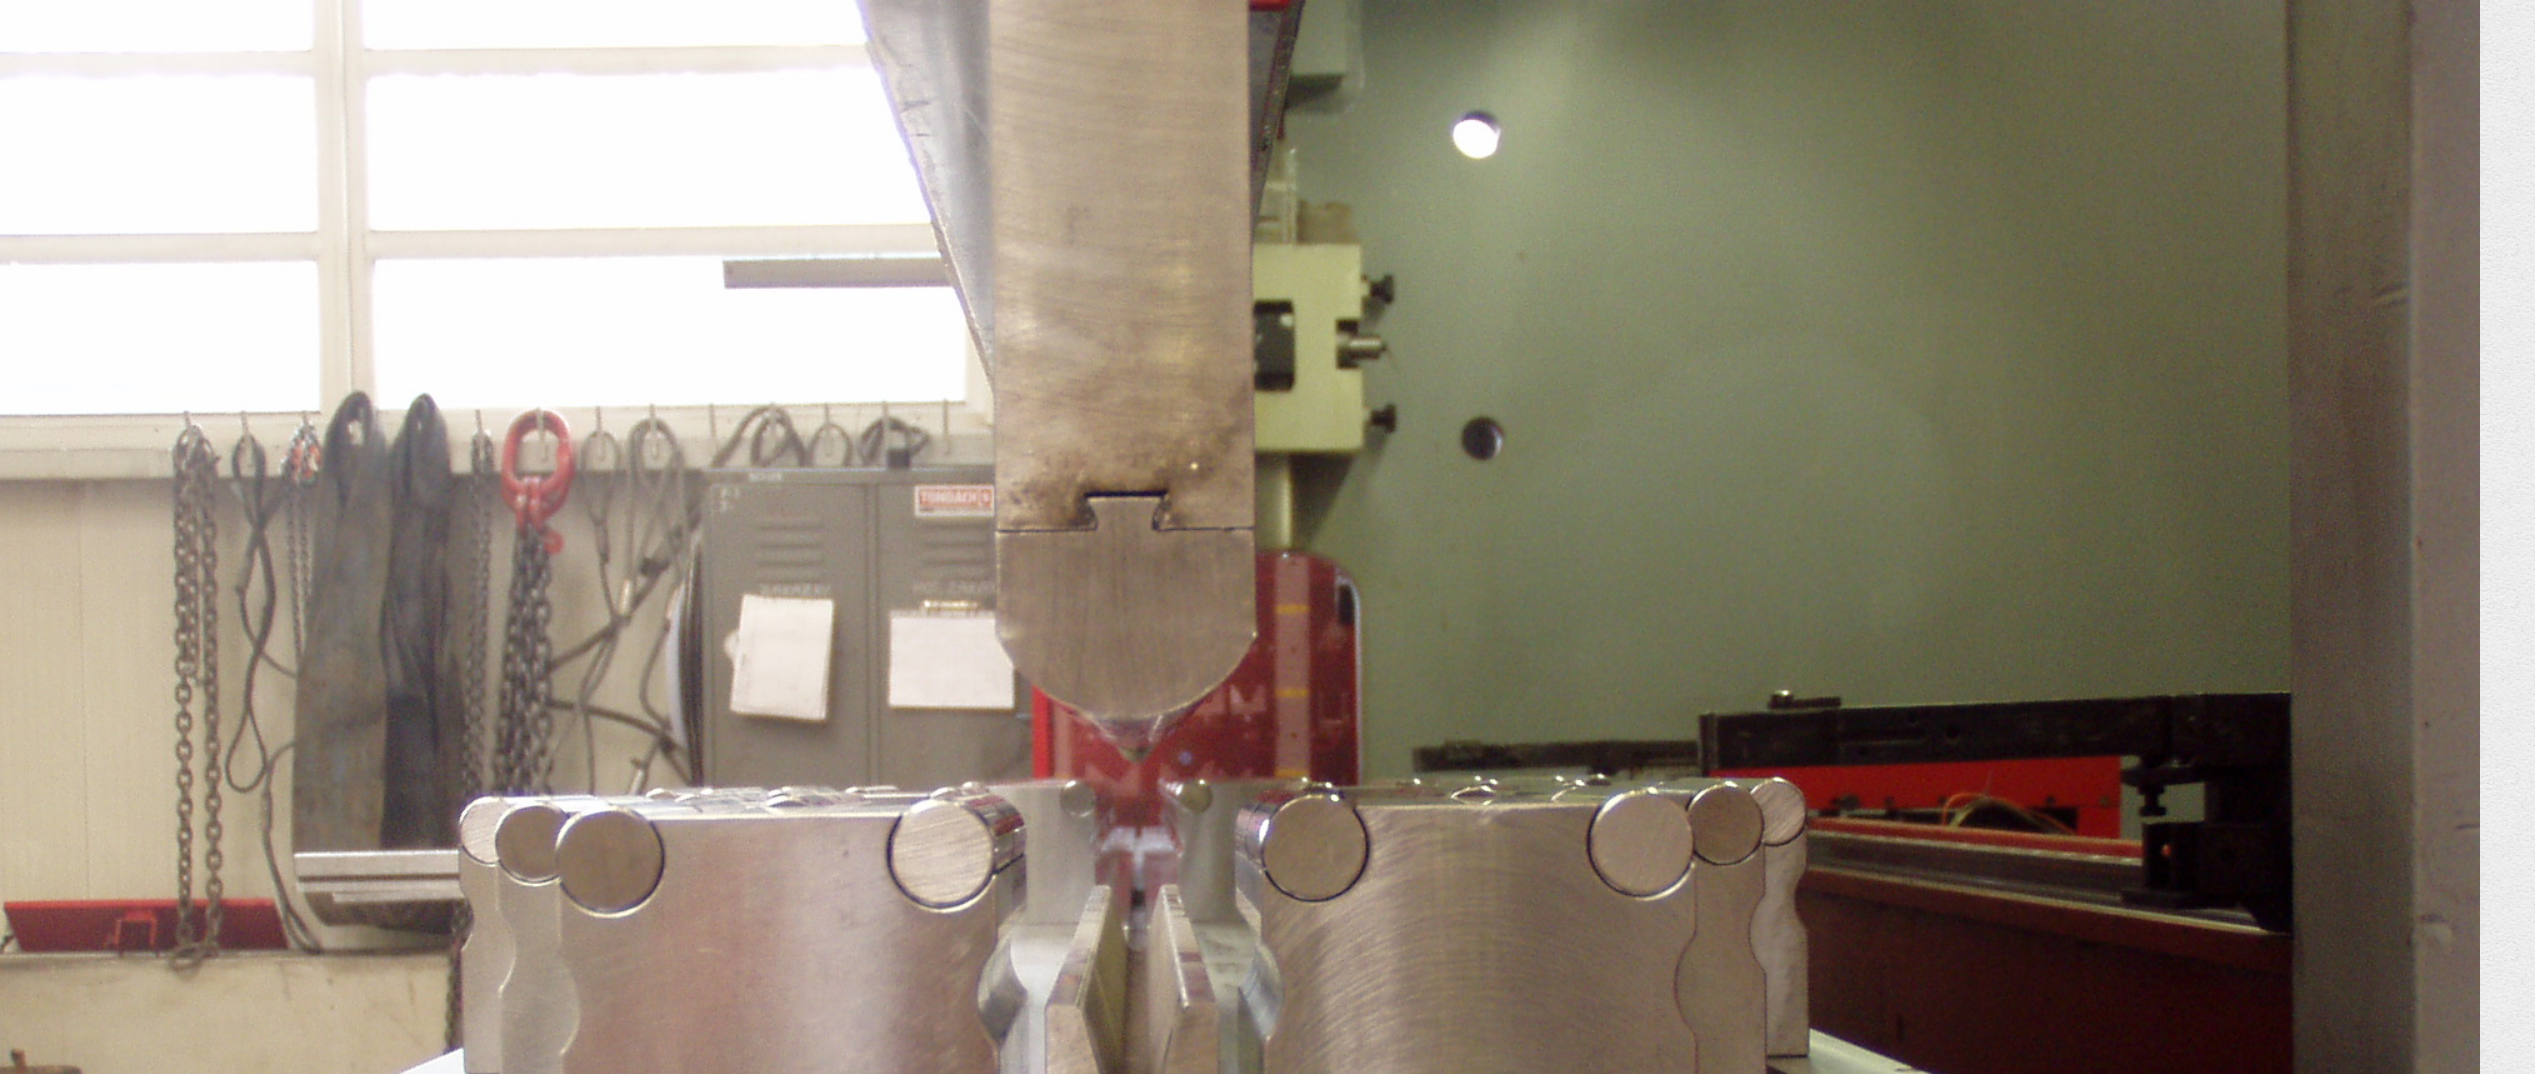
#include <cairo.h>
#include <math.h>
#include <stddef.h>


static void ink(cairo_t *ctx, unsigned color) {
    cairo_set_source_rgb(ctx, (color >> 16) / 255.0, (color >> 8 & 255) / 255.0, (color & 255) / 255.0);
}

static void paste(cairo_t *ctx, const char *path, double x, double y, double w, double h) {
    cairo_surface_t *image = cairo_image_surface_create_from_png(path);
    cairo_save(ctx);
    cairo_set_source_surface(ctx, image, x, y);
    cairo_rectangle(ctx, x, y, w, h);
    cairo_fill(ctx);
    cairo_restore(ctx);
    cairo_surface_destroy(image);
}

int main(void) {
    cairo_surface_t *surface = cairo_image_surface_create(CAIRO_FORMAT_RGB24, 2535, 1074);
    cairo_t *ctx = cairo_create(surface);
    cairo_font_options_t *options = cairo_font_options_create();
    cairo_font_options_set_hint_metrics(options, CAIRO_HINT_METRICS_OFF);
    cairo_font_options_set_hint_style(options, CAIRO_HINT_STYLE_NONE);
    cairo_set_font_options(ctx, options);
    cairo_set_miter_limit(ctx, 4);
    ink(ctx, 0xFFFFFF);
    cairo_paint(ctx);
    paste(ctx, "media/1.png", 2480, 0, 55, 1074);
    paste(ctx, "media/2.png", 0, 0, 2480, 1074);
    cairo_surface_write_to_png(surface, "image.png");
    cairo_font_options_destroy(options);
    cairo_destroy(ctx);
    cairo_surface_destroy(surface);
    return 0;
}
